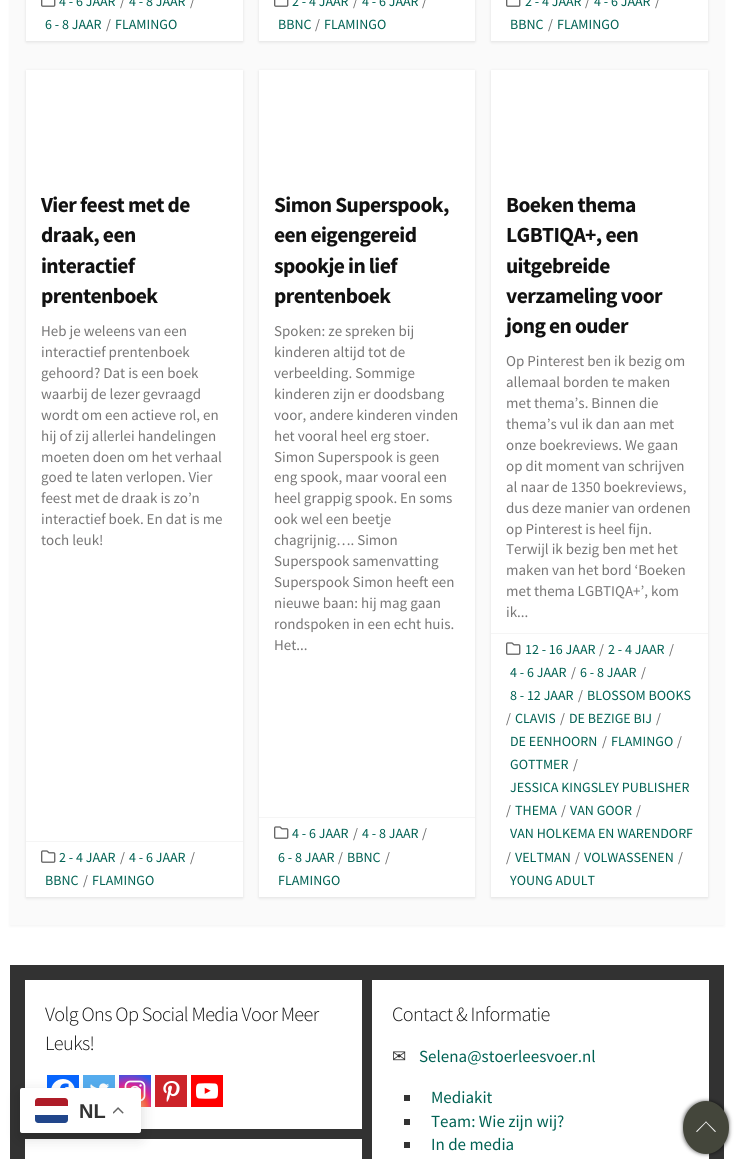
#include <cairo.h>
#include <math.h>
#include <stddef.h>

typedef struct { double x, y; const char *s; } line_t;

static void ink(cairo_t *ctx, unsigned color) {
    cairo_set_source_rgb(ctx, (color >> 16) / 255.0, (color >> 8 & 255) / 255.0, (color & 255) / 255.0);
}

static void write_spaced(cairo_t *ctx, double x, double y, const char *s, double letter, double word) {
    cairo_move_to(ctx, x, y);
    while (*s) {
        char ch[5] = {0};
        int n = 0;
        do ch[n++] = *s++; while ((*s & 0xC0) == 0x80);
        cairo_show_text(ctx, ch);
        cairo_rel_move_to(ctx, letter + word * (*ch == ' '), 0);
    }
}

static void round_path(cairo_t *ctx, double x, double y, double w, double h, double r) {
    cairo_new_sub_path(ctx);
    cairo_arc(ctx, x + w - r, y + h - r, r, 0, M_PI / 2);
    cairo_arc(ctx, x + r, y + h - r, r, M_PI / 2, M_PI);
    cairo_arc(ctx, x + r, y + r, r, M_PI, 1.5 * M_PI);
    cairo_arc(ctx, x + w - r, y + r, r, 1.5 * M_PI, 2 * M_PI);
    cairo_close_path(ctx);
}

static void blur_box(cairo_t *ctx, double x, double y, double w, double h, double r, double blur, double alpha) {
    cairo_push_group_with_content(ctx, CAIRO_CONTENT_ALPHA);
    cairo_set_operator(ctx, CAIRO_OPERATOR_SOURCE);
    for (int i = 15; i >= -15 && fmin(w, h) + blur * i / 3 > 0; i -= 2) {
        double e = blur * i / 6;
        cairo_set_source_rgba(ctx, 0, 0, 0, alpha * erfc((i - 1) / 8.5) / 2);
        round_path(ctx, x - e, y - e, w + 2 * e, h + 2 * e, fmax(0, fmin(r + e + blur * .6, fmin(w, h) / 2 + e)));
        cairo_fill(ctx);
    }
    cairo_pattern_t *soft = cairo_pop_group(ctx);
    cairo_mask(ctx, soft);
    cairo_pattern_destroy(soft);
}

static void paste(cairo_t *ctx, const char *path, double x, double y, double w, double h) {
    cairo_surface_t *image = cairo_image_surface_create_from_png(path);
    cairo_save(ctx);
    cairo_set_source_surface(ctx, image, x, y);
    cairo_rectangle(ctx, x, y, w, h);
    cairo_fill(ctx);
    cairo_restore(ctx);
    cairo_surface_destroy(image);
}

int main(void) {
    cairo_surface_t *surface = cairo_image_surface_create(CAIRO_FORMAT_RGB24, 734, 1159);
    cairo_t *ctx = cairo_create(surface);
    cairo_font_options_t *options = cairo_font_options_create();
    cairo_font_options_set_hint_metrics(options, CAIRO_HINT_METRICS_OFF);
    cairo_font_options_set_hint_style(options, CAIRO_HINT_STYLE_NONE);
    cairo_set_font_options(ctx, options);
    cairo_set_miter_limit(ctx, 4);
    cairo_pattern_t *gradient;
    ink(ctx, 0xFFFFFF);
    cairo_paint(ctx);
    ink(ctx, 0x000000);
    blur_box(ctx, 10, -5, 714, 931, 0, 1.5, 0.05);
    ink(ctx, 0xFAFAFA);
    cairo_rectangle(ctx, 10, 0, 714, 925);
    cairo_fill(ctx);
    ink(ctx, 0x000000);
    blur_box(ctx, 26, -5, 217, 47, 0, 1.5, 0.1);
    ink(ctx, 0xFFFFFF);
    cairo_rectangle(ctx, 26, 0, 217, 41);
    cairo_fill(ctx);
    paste(ctx, "media/1.png", 41, 0, 15, 7);
    cairo_select_font_face(ctx, "Source Sans Pro", CAIRO_FONT_SLANT_NORMAL, CAIRO_FONT_WEIGHT_NORMAL);
    cairo_set_font_size(ctx, 14);
    ink(ctx, 0x006153);
    cairo_move_to(ctx, 59, 6);
    cairo_show_text(ctx, "4 - 6 JAAR");
    ink(ctx, 0x666666);
    cairo_move_to(ctx, 120, 6);
    cairo_show_text(ctx, "/");
    ink(ctx, 0x006153);
    cairo_move_to(ctx, 129, 6);
    cairo_show_text(ctx, "4 - 8 JAAR");
    ink(ctx, 0x666666);
    cairo_move_to(ctx, 190, 6);
    cairo_show_text(ctx, "/");
    ink(ctx, 0x006153);
    cairo_move_to(ctx, 45, 29);
    cairo_show_text(ctx, "6 - 8 JAAR");
    ink(ctx, 0x666666);
    cairo_move_to(ctx, 106, 29);
    cairo_show_text(ctx, "/");
    ink(ctx, 0x006153);
    cairo_move_to(ctx, 115, 29);
    cairo_show_text(ctx, "FLAMINGO");
    ink(ctx, 0x000000);
    blur_box(ctx, 259, -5, 216, 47, 0, 1.5, 0.1);
    ink(ctx, 0xFFFFFF);
    cairo_rectangle(ctx, 259, 0, 216, 41);
    cairo_fill(ctx);
    paste(ctx, "media/1.png", 274, 0, 15, 7);
    ink(ctx, 0x006153);
    cairo_move_to(ctx, 292, 6);
    cairo_show_text(ctx, "2 - 4 JAAR");
    ink(ctx, 0x666666);
    cairo_move_to(ctx, 353, 6);
    cairo_show_text(ctx, "/");
    ink(ctx, 0x006153);
    cairo_move_to(ctx, 362, 6);
    cairo_show_text(ctx, "4 - 6 JAAR");
    ink(ctx, 0x666666);
    cairo_move_to(ctx, 422, 6);
    cairo_show_text(ctx, "/");
    ink(ctx, 0x006153);
    cairo_move_to(ctx, 278, 29);
    cairo_show_text(ctx, "BBNC");
    ink(ctx, 0x666666);
    cairo_move_to(ctx, 315, 29);
    cairo_show_text(ctx, "/");
    ink(ctx, 0x006153);
    cairo_move_to(ctx, 324, 29);
    cairo_show_text(ctx, "FLAMINGO");
    ink(ctx, 0x000000);
    blur_box(ctx, 491, -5, 217, 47, 0, 1.5, 0.1);
    ink(ctx, 0xFFFFFF);
    cairo_rectangle(ctx, 491, 0, 217, 41);
    cairo_fill(ctx);
    paste(ctx, "media/1.png", 506, 0, 15, 7);
    ink(ctx, 0x006153);
    cairo_move_to(ctx, 525, 6);
    cairo_show_text(ctx, "2 - 4 JAAR");
    ink(ctx, 0x666666);
    cairo_move_to(ctx, 585, 6);
    cairo_show_text(ctx, "/");
    ink(ctx, 0x006153);
    cairo_move_to(ctx, 594, 6);
    cairo_show_text(ctx, "4 - 6 JAAR");
    ink(ctx, 0x666666);
    cairo_move_to(ctx, 655, 6);
    cairo_show_text(ctx, "/");
    ink(ctx, 0x006153);
    cairo_move_to(ctx, 510, 29);
    cairo_show_text(ctx, "BBNC");
    ink(ctx, 0x666666);
    cairo_move_to(ctx, 548, 29);
    cairo_show_text(ctx, "/");
    ink(ctx, 0x006153);
    cairo_move_to(ctx, 557, 29);
    cairo_show_text(ctx, "FLAMINGO");
    ink(ctx, 0x000000);
    blur_box(ctx, 26, 71, 217, 827, 0, 1.5, 0.1);
    ink(ctx, 0xFFFFFF);
    cairo_rectangle(ctx, 26, 70, 217, 827);
    cairo_fill(ctx);
    ink(ctx, 0xF5F5F5);
    cairo_rectangle(ctx, 26, 841, 217, 1);
    cairo_fill(ctx);
    cairo_select_font_face(ctx, "Source Sans Pro", CAIRO_FONT_SLANT_NORMAL, CAIRO_FONT_WEIGHT_BOLD);
    cairo_set_font_size(ctx, 21.5);
    ink(ctx, 0x111111);
    {
        static const line_t items[] = {
            {41, 212, "Vier feest met de"},
            {41, 242, "draak, een"},
            {41, 273, "interactief"},
            {41, 303, "prentenboek"},
        };
        for (size_t i = 0; i < sizeof items / sizeof *items; i++) {
            write_spaced(ctx, items[i].x, items[i].y, items[i].s, -0.6, 0);
        }
    }
    cairo_select_font_face(ctx, "Source Sans Pro", CAIRO_FONT_SLANT_NORMAL, CAIRO_FONT_WEIGHT_NORMAL);
    cairo_set_font_size(ctx, 15);
    ink(ctx, 0x777676);
    {
        static const line_t items[] = {
            {41, 336, "Heb je weleens van een"},
            {41, 357, "interactief prentenboek"},
            {41, 378, "gehoord? Dat is een boek"},
            {41, 399, "waarbij de lezer gevraagd"},
            {41, 420, "wordt om een actieve rol, en"},
            {41, 441, "hij of zij allerlei handelingen"},
            {41, 462, "moeten doen om het verhaal"},
            {41, 482, "goed te laten verlopen. Vier"},
            {41, 503, "feest met de draak is zo’n"},
            {41, 524, "interactief boek. En dat is me"},
            {41, 545, "toch leuk!"},
        };
        for (size_t i = 0; i < sizeof items / sizeof *items; i++) {
            cairo_move_to(ctx, items[i].x, items[i].y);
            cairo_show_text(ctx, items[i].s);
        }
    }
    paste(ctx, "media/2.png", 41, 850, 15, 13);
    cairo_set_font_size(ctx, 14);
    ink(ctx, 0x006153);
    cairo_move_to(ctx, 59, 862);
    cairo_show_text(ctx, "2 - 4 JAAR");
    ink(ctx, 0x666666);
    cairo_move_to(ctx, 120, 862);
    cairo_show_text(ctx, "/");
    ink(ctx, 0x006153);
    cairo_move_to(ctx, 129, 862);
    cairo_show_text(ctx, "4 - 6 JAAR");
    ink(ctx, 0x666666);
    cairo_move_to(ctx, 190, 862);
    cairo_show_text(ctx, "/");
    ink(ctx, 0x006153);
    cairo_move_to(ctx, 45, 885);
    cairo_show_text(ctx, "BBNC");
    ink(ctx, 0x666666);
    cairo_move_to(ctx, 83, 885);
    cairo_show_text(ctx, "/");
    ink(ctx, 0x006153);
    cairo_move_to(ctx, 92, 885);
    cairo_show_text(ctx, "FLAMINGO");
    ink(ctx, 0x000000);
    blur_box(ctx, 259, 71, 216, 827, 0, 1.5, 0.1);
    ink(ctx, 0xFFFFFF);
    cairo_rectangle(ctx, 259, 70, 216, 827);
    cairo_fill(ctx);
    ink(ctx, 0xF5F5F5);
    cairo_rectangle(ctx, 259, 817, 216, 1);
    cairo_fill(ctx);
    cairo_select_font_face(ctx, "Source Sans Pro", CAIRO_FONT_SLANT_NORMAL, CAIRO_FONT_WEIGHT_BOLD);
    cairo_set_font_size(ctx, 21.5);
    ink(ctx, 0x111111);
    {
        static const line_t items[] = {
            {274, 212, "Simon Superspook,"},
            {274, 242, "een eigengereid"},
            {274, 273, "spookje in lief"},
            {274, 303, "prentenboek"},
        };
        for (size_t i = 0; i < sizeof items / sizeof *items; i++) {
            write_spaced(ctx, items[i].x, items[i].y, items[i].s, -0.6, 0);
        }
    }
    cairo_select_font_face(ctx, "Source Sans Pro", CAIRO_FONT_SLANT_NORMAL, CAIRO_FONT_WEIGHT_NORMAL);
    cairo_set_font_size(ctx, 15);
    ink(ctx, 0x777676);
    {
        static const line_t items[] = {
            {274, 336, "Spoken: ze spreken bij"},
            {274, 357, "kinderen altijd tot de"},
            {274, 378, "verbeelding. Sommige"},
            {274, 399, "kinderen zijn er doodsbang"},
            {274, 420, "voor, andere kinderen vinden"},
            {274, 441, "het vooral heel erg stoer."},
            {274, 462, "Simon Superspook is geen"},
            {274, 482, "eng spook, maar vooral een"},
            {274, 503, "heel grappig spook. En soms"},
            {274, 524, "ook wel een beetje"},
            {274, 545, "chagrijnig…. Simon"},
            {274, 566, "Superspook samenvatting"},
            {274, 587, "Superspook Simon heeft een"},
            {274, 608, "nieuwe baan: hij mag gaan"},
            {274, 629, "rondspoken in een echt huis."},
            {274, 650, "Het..."},
        };
        for (size_t i = 0; i < sizeof items / sizeof *items; i++) {
            cairo_move_to(ctx, items[i].x, items[i].y);
            cairo_show_text(ctx, items[i].s);
        }
    }
    paste(ctx, "media/2.png", 274, 826, 15, 13);
    cairo_set_font_size(ctx, 14);
    ink(ctx, 0x006153);
    cairo_move_to(ctx, 292, 838);
    cairo_show_text(ctx, "4 - 6 JAAR");
    ink(ctx, 0x666666);
    cairo_move_to(ctx, 353, 838);
    cairo_show_text(ctx, "/");
    ink(ctx, 0x006153);
    cairo_move_to(ctx, 362, 838);
    cairo_show_text(ctx, "4 - 8 JAAR");
    ink(ctx, 0x666666);
    cairo_move_to(ctx, 422, 838);
    cairo_show_text(ctx, "/");
    ink(ctx, 0x006153);
    cairo_move_to(ctx, 278, 862);
    cairo_show_text(ctx, "6 - 8 JAAR");
    ink(ctx, 0x666666);
    cairo_move_to(ctx, 338, 862);
    cairo_show_text(ctx, "/");
    ink(ctx, 0x006153);
    cairo_move_to(ctx, 347, 862);
    cairo_show_text(ctx, "BBNC");
    ink(ctx, 0x666666);
    cairo_move_to(ctx, 385, 862);
    cairo_show_text(ctx, "/");
    ink(ctx, 0x006153);
    cairo_move_to(ctx, 278, 885);
    cairo_show_text(ctx, "FLAMINGO");
    ink(ctx, 0x000000);
    blur_box(ctx, 491, 71, 217, 827, 0, 1.5, 0.1);
    ink(ctx, 0xFFFFFF);
    cairo_rectangle(ctx, 491, 70, 217, 827);
    cairo_fill(ctx);
    ink(ctx, 0xF5F5F5);
    cairo_rectangle(ctx, 491, 633, 217, 1);
    cairo_fill(ctx);
    cairo_select_font_face(ctx, "Source Sans Pro", CAIRO_FONT_SLANT_NORMAL, CAIRO_FONT_WEIGHT_BOLD);
    cairo_set_font_size(ctx, 21.5);
    ink(ctx, 0x111111);
    {
        static const line_t items[] = {
            {506, 212, "Boeken thema"},
            {506, 242, "LGBTIQA+, een"},
            {506, 273, "uitgebreide"},
            {506, 303, "verzameling voor"},
            {506, 333, "jong en ouder"},
        };
        for (size_t i = 0; i < sizeof items / sizeof *items; i++) {
            write_spaced(ctx, items[i].x, items[i].y, items[i].s, -0.6, 0);
        }
    }
    cairo_select_font_face(ctx, "Source Sans Pro", CAIRO_FONT_SLANT_NORMAL, CAIRO_FONT_WEIGHT_NORMAL);
    cairo_set_font_size(ctx, 15);
    ink(ctx, 0x777676);
    {
        static const line_t items[] = {
            {506, 366, "Op Pinterest ben ik bezig om"},
            {506, 387, "allemaal borden te maken"},
            {506, 408, "met thema’s. Binnen die"},
            {506, 429, "thema’s vul ik dan aan met"},
            {506, 450, "onze boekreviews. We gaan"},
            {506, 471, "op dit moment van schrijven"},
            {506, 492, "al naar de 1350 boekreviews,"},
            {506, 513, "dus deze manier van ordenen"},
            {506, 534, "op Pinterest is heel fijn."},
            {506, 554, "Terwijl ik bezig ben met het"},
            {506, 575, "maken van het bord ‘Boeken"},
            {506, 596, "met thema LGBTIQA+’, kom"},
            {506, 617, "ik..."},
        };
        for (size_t i = 0; i < sizeof items / sizeof *items; i++) {
            cairo_move_to(ctx, items[i].x, items[i].y);
            cairo_show_text(ctx, items[i].s);
        }
    }
    paste(ctx, "media/2.png", 506, 642, 15, 13);
    cairo_set_font_size(ctx, 14);
    ink(ctx, 0x006153);
    cairo_move_to(ctx, 525, 654);
    cairo_show_text(ctx, "12 - 16 JAAR");
    ink(ctx, 0x666666);
    cairo_move_to(ctx, 599, 654);
    cairo_show_text(ctx, "/");
    ink(ctx, 0x006153);
    cairo_move_to(ctx, 608, 654);
    cairo_show_text(ctx, "2 - 4 JAAR");
    ink(ctx, 0x666666);
    cairo_move_to(ctx, 669, 654);
    cairo_show_text(ctx, "/");
    ink(ctx, 0x006153);
    cairo_move_to(ctx, 510, 677);
    cairo_show_text(ctx, "4 - 6 JAAR");
    ink(ctx, 0x666666);
    cairo_move_to(ctx, 571, 677);
    cairo_show_text(ctx, "/");
    ink(ctx, 0x006153);
    cairo_move_to(ctx, 580, 677);
    cairo_show_text(ctx, "6 - 8 JAAR");
    ink(ctx, 0x666666);
    cairo_move_to(ctx, 641, 677);
    cairo_show_text(ctx, "/");
    ink(ctx, 0x006153);
    cairo_move_to(ctx, 510, 700);
    cairo_show_text(ctx, "8 - 12 JAAR");
    ink(ctx, 0x666666);
    cairo_move_to(ctx, 578, 700);
    cairo_show_text(ctx, "/");
    ink(ctx, 0x006153);
    cairo_move_to(ctx, 587, 700);
    cairo_show_text(ctx, "BLOSSOM BOOKS");
    ink(ctx, 0x666666);
    cairo_move_to(ctx, 506, 723);
    cairo_show_text(ctx, "/");
    ink(ctx, 0x006153);
    cairo_move_to(ctx, 515, 723);
    cairo_show_text(ctx, "CLAVIS");
    ink(ctx, 0x666666);
    cairo_move_to(ctx, 560, 723);
    cairo_show_text(ctx, "/");
    ink(ctx, 0x006153);
    cairo_move_to(ctx, 569, 723);
    cairo_show_text(ctx, "DE BEZIGE BIJ");
    ink(ctx, 0x666666);
    cairo_move_to(ctx, 656, 723);
    cairo_show_text(ctx, "/");
    ink(ctx, 0x006153);
    cairo_move_to(ctx, 510, 746);
    cairo_show_text(ctx, "DE EENHOORN");
    ink(ctx, 0x666666);
    cairo_move_to(ctx, 602, 746);
    cairo_show_text(ctx, "/");
    ink(ctx, 0x006153);
    cairo_move_to(ctx, 611, 746);
    cairo_show_text(ctx, "FLAMINGO");
    ink(ctx, 0x666666);
    cairo_move_to(ctx, 677, 746);
    cairo_show_text(ctx, "/");
    ink(ctx, 0x006153);
    cairo_move_to(ctx, 510, 769);
    cairo_show_text(ctx, "GOTTMER");
    ink(ctx, 0x666666);
    cairo_move_to(ctx, 573, 769);
    cairo_show_text(ctx, "/");
    ink(ctx, 0x006153);
    cairo_move_to(ctx, 510, 792);
    cairo_show_text(ctx, "JESSICA KINGSLEY PUBLISHER");
    ink(ctx, 0x666666);
    cairo_move_to(ctx, 506, 815);
    cairo_show_text(ctx, "/");
    ink(ctx, 0x006153);
    cairo_move_to(ctx, 515, 815);
    cairo_show_text(ctx, "THEMA");
    ink(ctx, 0x666666);
    cairo_move_to(ctx, 561, 815);
    cairo_show_text(ctx, "/");
    ink(ctx, 0x006153);
    cairo_move_to(ctx, 570, 815);
    cairo_show_text(ctx, "VAN GOOR");
    ink(ctx, 0x666666);
    cairo_move_to(ctx, 636, 815);
    cairo_show_text(ctx, "/");
    ink(ctx, 0x006153);
    cairo_move_to(ctx, 510, 838);
    cairo_show_text(ctx, "VAN HOLKEMA EN WARENDORF");
    ink(ctx, 0x666666);
    cairo_move_to(ctx, 506, 862);
    cairo_show_text(ctx, "/");
    ink(ctx, 0x006153);
    cairo_move_to(ctx, 515, 862);
    cairo_show_text(ctx, "VELTMAN");
    ink(ctx, 0x666666);
    cairo_move_to(ctx, 575, 862);
    cairo_show_text(ctx, "/");
    ink(ctx, 0x006153);
    cairo_move_to(ctx, 584, 862);
    cairo_show_text(ctx, "VOLWASSENEN");
    ink(ctx, 0x666666);
    cairo_move_to(ctx, 678, 862);
    cairo_show_text(ctx, "/");
    ink(ctx, 0x006153);
    cairo_move_to(ctx, 510, 885);
    cairo_show_text(ctx, "YOUNG ADULT");
    ink(ctx, 0x323232);
    cairo_rectangle(ctx, 10, 965, 714, 194);
    cairo_fill(ctx);
    ink(ctx, 0xFFFFFF);
    cairo_rectangle(ctx, 25, 980, 337, 149);
    cairo_fill(ctx);
    cairo_select_font_face(ctx, "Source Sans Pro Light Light", CAIRO_FONT_SLANT_NORMAL, CAIRO_FONT_WEIGHT_NORMAL);
    cairo_set_font_size(ctx, 20.25);
    ink(ctx, 0x111111);
    write_spaced(ctx, 45, 1021, "Volg Ons Op Social Media Voor Meer", -0.6, 0);
    write_spaced(ctx, 45, 1050, "Leuks!", -0.6, 0);
    ink(ctx, 0x0765FE);
    cairo_rectangle(ctx, 47, 1075, 32, 13);
    cairo_fill(ctx);
    paste(ctx, "media/3.png", 51, 1079, 24, 9);
    ink(ctx, 0x55ACEE);
    cairo_rectangle(ctx, 83, 1075, 32, 13);
    cairo_fill(ctx);
    paste(ctx, "media/4.png", 90, 1083, 20, 5);
    gradient = cairo_pattern_create_radial(129, 1109, 0, 129, 1109, 41);
    cairo_pattern_add_color_stop_rgba(gradient, 0, 0.992, 0.957, 0.592, 1);
    cairo_pattern_add_color_stop_rgba(gradient, 0.05, 0.992, 0.957, 0.592, 1);
    cairo_pattern_add_color_stop_rgba(gradient, 0.45, 0.992, 0.349, 0.286, 1);
    cairo_pattern_add_color_stop_rgba(gradient, 0.6, 0.839, 0.141, 0.624, 1);
    cairo_pattern_add_color_stop_rgba(gradient, 0.9, 0.157, 0.353, 0.922, 1);
    cairo_set_source(ctx, gradient);
    cairo_pattern_destroy(gradient);
    cairo_rectangle(ctx, 119, 1075, 32, 32);
    cairo_fill(ctx);
    paste(ctx, "media/5.png", 124, 1080, 22, 22);
    ink(ctx, 0xCC2329);
    cairo_rectangle(ctx, 155, 1075, 32, 32);
    cairo_fill(ctx);
    paste(ctx, "media/6.png", 163, 1080, 17, 22);
    ink(ctx, 0xFF0000);
    cairo_rectangle(ctx, 191, 1075, 32, 32);
    cairo_fill(ctx);
    paste(ctx, "media/7.png", 196, 1083, 22, 16);
    ink(ctx, 0xFFFFFF);
    cairo_rectangle(ctx, 372, 980, 337, 179);
    cairo_fill(ctx);
    ink(ctx, 0x111111);
    write_spaced(ctx, 392, 1021, "Contact & Informatie", -0.6, 0);
    cairo_select_font_face(ctx, "DejaVu Sans", CAIRO_FONT_SLANT_NORMAL, CAIRO_FONT_WEIGHT_NORMAL);
    cairo_set_font_size(ctx, 17);
    ink(ctx, 0x333333);
    cairo_move_to(ctx, 392, 1062);
    cairo_show_text(ctx, "✉");
    cairo_select_font_face(ctx, "Source Sans Pro", CAIRO_FONT_SLANT_NORMAL, CAIRO_FONT_WEIGHT_NORMAL);
    ink(ctx, 0x006153);
    cairo_move_to(ctx, 419, 1062);
    cairo_show_text(ctx, "Selena@stoerleesvoer.nl");
    ink(ctx, 0x333333);
    cairo_rectangle(ctx, 404, 1095, 6, 6);
    cairo_fill(ctx);
    ink(ctx, 0x006153);
    cairo_move_to(ctx, 431, 1103);
    cairo_show_text(ctx, "Mediakit");
    ink(ctx, 0x333333);
    cairo_rectangle(ctx, 404, 1119, 6, 6);
    cairo_fill(ctx);
    ink(ctx, 0x006153);
    cairo_move_to(ctx, 431, 1127);
    cairo_show_text(ctx, "Team: Wie zijn wij?");
    ink(ctx, 0x333333);
    cairo_rectangle(ctx, 404, 1142, 6, 6);
    cairo_fill(ctx);
    ink(ctx, 0x006153);
    cairo_move_to(ctx, 431, 1150);
    cairo_show_text(ctx, "In de media");
    ink(ctx, 0xFFFFFF);
    cairo_rectangle(ctx, 25, 1139, 337, 20);
    cairo_fill(ctx);
    ink(ctx, 0x000000);
    blur_box(ctx, 683, 1101, 46, 53, 23, 2, 0.6);
    ink(ctx, 0x44463B);
    cairo_new_path(ctx);
    cairo_move_to(ctx, 706, 1101);
    cairo_curve_to(ctx, 718.5, 1101, 729, 1113, 729, 1127.5);
    cairo_curve_to(ctx, 729, 1142, 718.5, 1154, 706, 1154);
    cairo_curve_to(ctx, 693.5, 1154, 683, 1142, 683, 1127.5);
    cairo_curve_to(ctx, 683, 1113, 693.5, 1101, 706, 1101);
    cairo_close_path(ctx);
    cairo_fill(ctx);
    ink(ctx, 0xF7F7F7);
    cairo_new_path(ctx);
    cairo_move_to(ctx, 706, 1121.5);
    cairo_line_to(ctx, 716, 1131.5);
    cairo_line_to(ctx, 715, 1132);
    cairo_line_to(ctx, 705.5, 1122);
    cairo_close_path(ctx);
    cairo_fill(ctx);
    cairo_new_path(ctx);
    cairo_move_to(ctx, 706, 1121.5);
    cairo_line_to(ctx, 706.5, 1122);
    cairo_line_to(ctx, 697, 1132);
    cairo_line_to(ctx, 696, 1131.5);
    cairo_close_path(ctx);
    cairo_fill(ctx);
    ink(ctx, 0x000000);
    blur_box(ctx, 20, 1093, 121, 45, 2, 7.5, 0.15);
    ink(ctx, 0xFFFFFF);
    round_path(ctx, 20, 1088, 121, 45, 2);
    cairo_fill(ctx);
    ink(ctx, 0x21468B);
    cairo_new_path(ctx);
    cairo_move_to(ctx, 35, 1115);
    cairo_line_to(ctx, 68, 1115);
    cairo_line_to(ctx, 68, 1120);
    cairo_curve_to(ctx, 68, 1121.5, 66.5, 1123, 65, 1123);
    cairo_line_to(ctx, 38, 1123);
    cairo_curve_to(ctx, 36.5, 1123, 35, 1121.5, 35, 1120);
    cairo_close_path(ctx);
    cairo_fill(ctx);
    ink(ctx, 0xAE1C28);
    cairo_new_path(ctx);
    cairo_move_to(ctx, 38, 1098);
    cairo_line_to(ctx, 65, 1098);
    cairo_curve_to(ctx, 66.5, 1098, 68, 1099.5, 68, 1101);
    cairo_line_to(ctx, 68, 1106);
    cairo_line_to(ctx, 35, 1106);
    cairo_line_to(ctx, 35, 1101);
    cairo_curve_to(ctx, 35, 1099.5, 36.5, 1098, 38, 1098);
    cairo_close_path(ctx);
    cairo_fill(ctx);
    cairo_select_font_face(ctx, "Liberation Sans", CAIRO_FONT_SLANT_NORMAL, CAIRO_FONT_WEIGHT_BOLD);
    cairo_set_font_size(ctx, 20);
    ink(ctx, 0x333333);
    cairo_move_to(ctx, 79, 1118);
    cairo_show_text(ctx, "NL");
    paste(ctx, "media/8.png", 113, 1107, 11, 7);
    cairo_surface_write_to_png(surface, "image.png");
    cairo_font_options_destroy(options);
    cairo_destroy(ctx);
    cairo_surface_destroy(surface);
    return 0;
}
